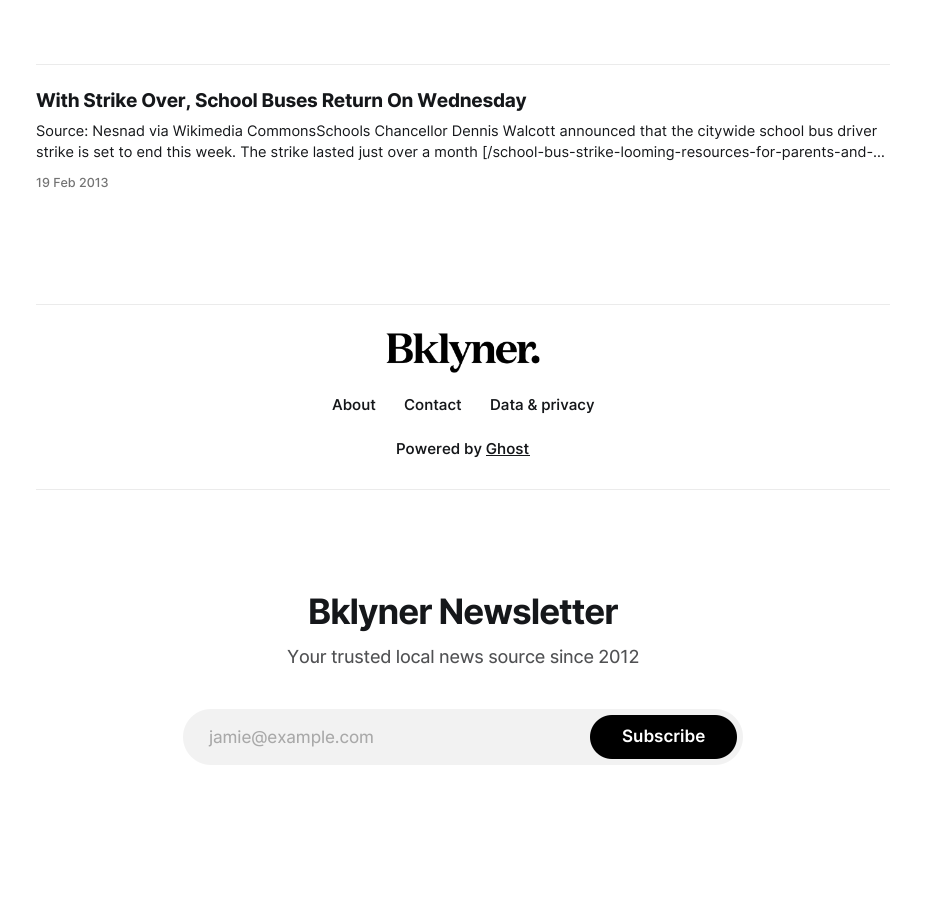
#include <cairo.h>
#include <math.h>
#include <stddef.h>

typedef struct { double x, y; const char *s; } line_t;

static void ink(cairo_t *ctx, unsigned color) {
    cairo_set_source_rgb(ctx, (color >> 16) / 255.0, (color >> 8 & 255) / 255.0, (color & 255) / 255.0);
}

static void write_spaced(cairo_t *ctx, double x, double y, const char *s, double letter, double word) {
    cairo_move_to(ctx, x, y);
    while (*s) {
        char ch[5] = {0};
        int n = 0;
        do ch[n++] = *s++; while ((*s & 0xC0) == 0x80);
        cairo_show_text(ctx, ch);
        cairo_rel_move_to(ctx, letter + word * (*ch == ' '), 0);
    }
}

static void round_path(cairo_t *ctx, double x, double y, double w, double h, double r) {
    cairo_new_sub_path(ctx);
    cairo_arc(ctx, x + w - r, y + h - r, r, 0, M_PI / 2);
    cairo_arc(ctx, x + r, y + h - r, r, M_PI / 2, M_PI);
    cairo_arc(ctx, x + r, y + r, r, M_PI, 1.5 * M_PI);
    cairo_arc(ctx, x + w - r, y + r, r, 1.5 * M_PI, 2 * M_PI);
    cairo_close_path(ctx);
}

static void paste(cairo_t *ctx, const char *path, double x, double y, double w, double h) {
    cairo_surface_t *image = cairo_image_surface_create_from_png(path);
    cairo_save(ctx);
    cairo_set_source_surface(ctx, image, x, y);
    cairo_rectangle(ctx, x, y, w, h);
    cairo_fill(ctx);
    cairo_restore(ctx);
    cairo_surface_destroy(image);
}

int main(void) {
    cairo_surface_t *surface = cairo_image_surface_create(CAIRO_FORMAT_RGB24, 926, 901);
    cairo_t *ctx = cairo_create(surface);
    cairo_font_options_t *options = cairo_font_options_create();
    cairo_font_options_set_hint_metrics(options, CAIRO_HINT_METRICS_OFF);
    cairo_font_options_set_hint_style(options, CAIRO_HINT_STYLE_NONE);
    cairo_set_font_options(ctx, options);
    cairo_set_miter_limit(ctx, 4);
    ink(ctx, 0xFFFFFF);
    cairo_paint(ctx);
    ink(ctx, 0xEBEBEB);
    cairo_rectangle(ctx, 36, 64, 854, 1);
    cairo_fill(ctx);
    cairo_select_font_face(ctx, "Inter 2", CAIRO_FONT_SLANT_NORMAL, CAIRO_FONT_WEIGHT_BOLD);
    cairo_set_font_size(ctx, 19);
    ink(ctx, 0x15171A);
    write_spaced(ctx, 36, 107, "With Strike Over, School Buses Return On Wednesday", -0.27, 0);
    cairo_select_font_face(ctx, "Inter", CAIRO_FONT_SLANT_NORMAL, CAIRO_FONT_WEIGHT_NORMAL);
    cairo_set_font_size(ctx, 14.5);
    cairo_move_to(ctx, 36, 136);
    cairo_show_text(ctx, "Source: Nesnad via Wikimedia CommonsSchools Chancellor Dennis Walcott announced that the citywide school bus driver");
    cairo_move_to(ctx, 36, 157);
    cairo_show_text(ctx, "strike is set to end this week. The strike lasted just over a month [/school-bus-strike-looming-resources-for-parents-and-…");
    cairo_select_font_face(ctx, "Inter 2 Medium", CAIRO_FONT_SLANT_NORMAL, CAIRO_FONT_WEIGHT_NORMAL);
    cairo_set_font_size(ctx, 12.5);
    ink(ctx, 0x737373);
    cairo_move_to(ctx, 36, 187);
    cairo_show_text(ctx, "19 Feb 2013");
    ink(ctx, 0xEBEBEB);
    cairo_rectangle(ctx, 36, 304, 854, 1);
    cairo_fill(ctx);
    cairo_rectangle(ctx, 36, 489, 854, 1);
    cairo_fill(ctx);
    paste(ctx, "media/1.png", 386, 333, 154, 40);
    cairo_select_font_face(ctx, "Inter Medium", CAIRO_FONT_SLANT_NORMAL, CAIRO_FONT_WEIGHT_NORMAL);
    cairo_set_font_size(ctx, 15);
    ink(ctx, 0x15171A);
    {
        static const line_t items[] = {
            {332, 410, "About"},
            {404, 410, "Contact"},
            {490, 410, "Data & privacy"},
            {396, 454, "Powered by Ghost"},
        };
        for (size_t i = 0; i < sizeof items / sizeof *items; i++) {
            cairo_move_to(ctx, items[i].x, items[i].y);
            cairo_show_text(ctx, items[i].s);
        }
    }
    cairo_rectangle(ctx, 486, 455, 44, 1);
    cairo_fill(ctx);
    cairo_select_font_face(ctx, "Inter", CAIRO_FONT_SLANT_NORMAL, CAIRO_FONT_WEIGHT_BOLD);
    cairo_set_font_size(ctx, 35);
    write_spaced(ctx, 308, 624, "Bklyner Newsletter", -1, 0);
    cairo_select_font_face(ctx, "Inter 2", CAIRO_FONT_SLANT_NORMAL, CAIRO_FONT_WEIGHT_NORMAL);
    cairo_set_font_size(ctx, 18);
    ink(ctx, 0x505153);
    write_spaced(ctx, 287, 663, "Your trusted local news source since 2012", -0.25, 0);
    ink(ctx, 0xF2F2F2);
    round_path(ctx, 183, 709, 560, 56, 28);
    cairo_fill(ctx);
    cairo_set_font_size(ctx, 17);
    ink(ctx, 0xA9A9A9);
    write_spaced(ctx, 209, 743, "jamie@example.com", -0.1, 0);
    ink(ctx, 0x000000);
    round_path(ctx, 590, 715, 147, 44, 22);
    cairo_fill(ctx);
    cairo_select_font_face(ctx, "Inter SemiBold", CAIRO_FONT_SLANT_NORMAL, CAIRO_FONT_WEIGHT_NORMAL);
    ink(ctx, 0xFFFFFF);
    cairo_move_to(ctx, 622, 742);
    cairo_show_text(ctx, "Subscribe");
    cairo_surface_write_to_png(surface, "image.png");
    cairo_font_options_destroy(options);
    cairo_destroy(ctx);
    cairo_surface_destroy(surface);
    return 0;
}
